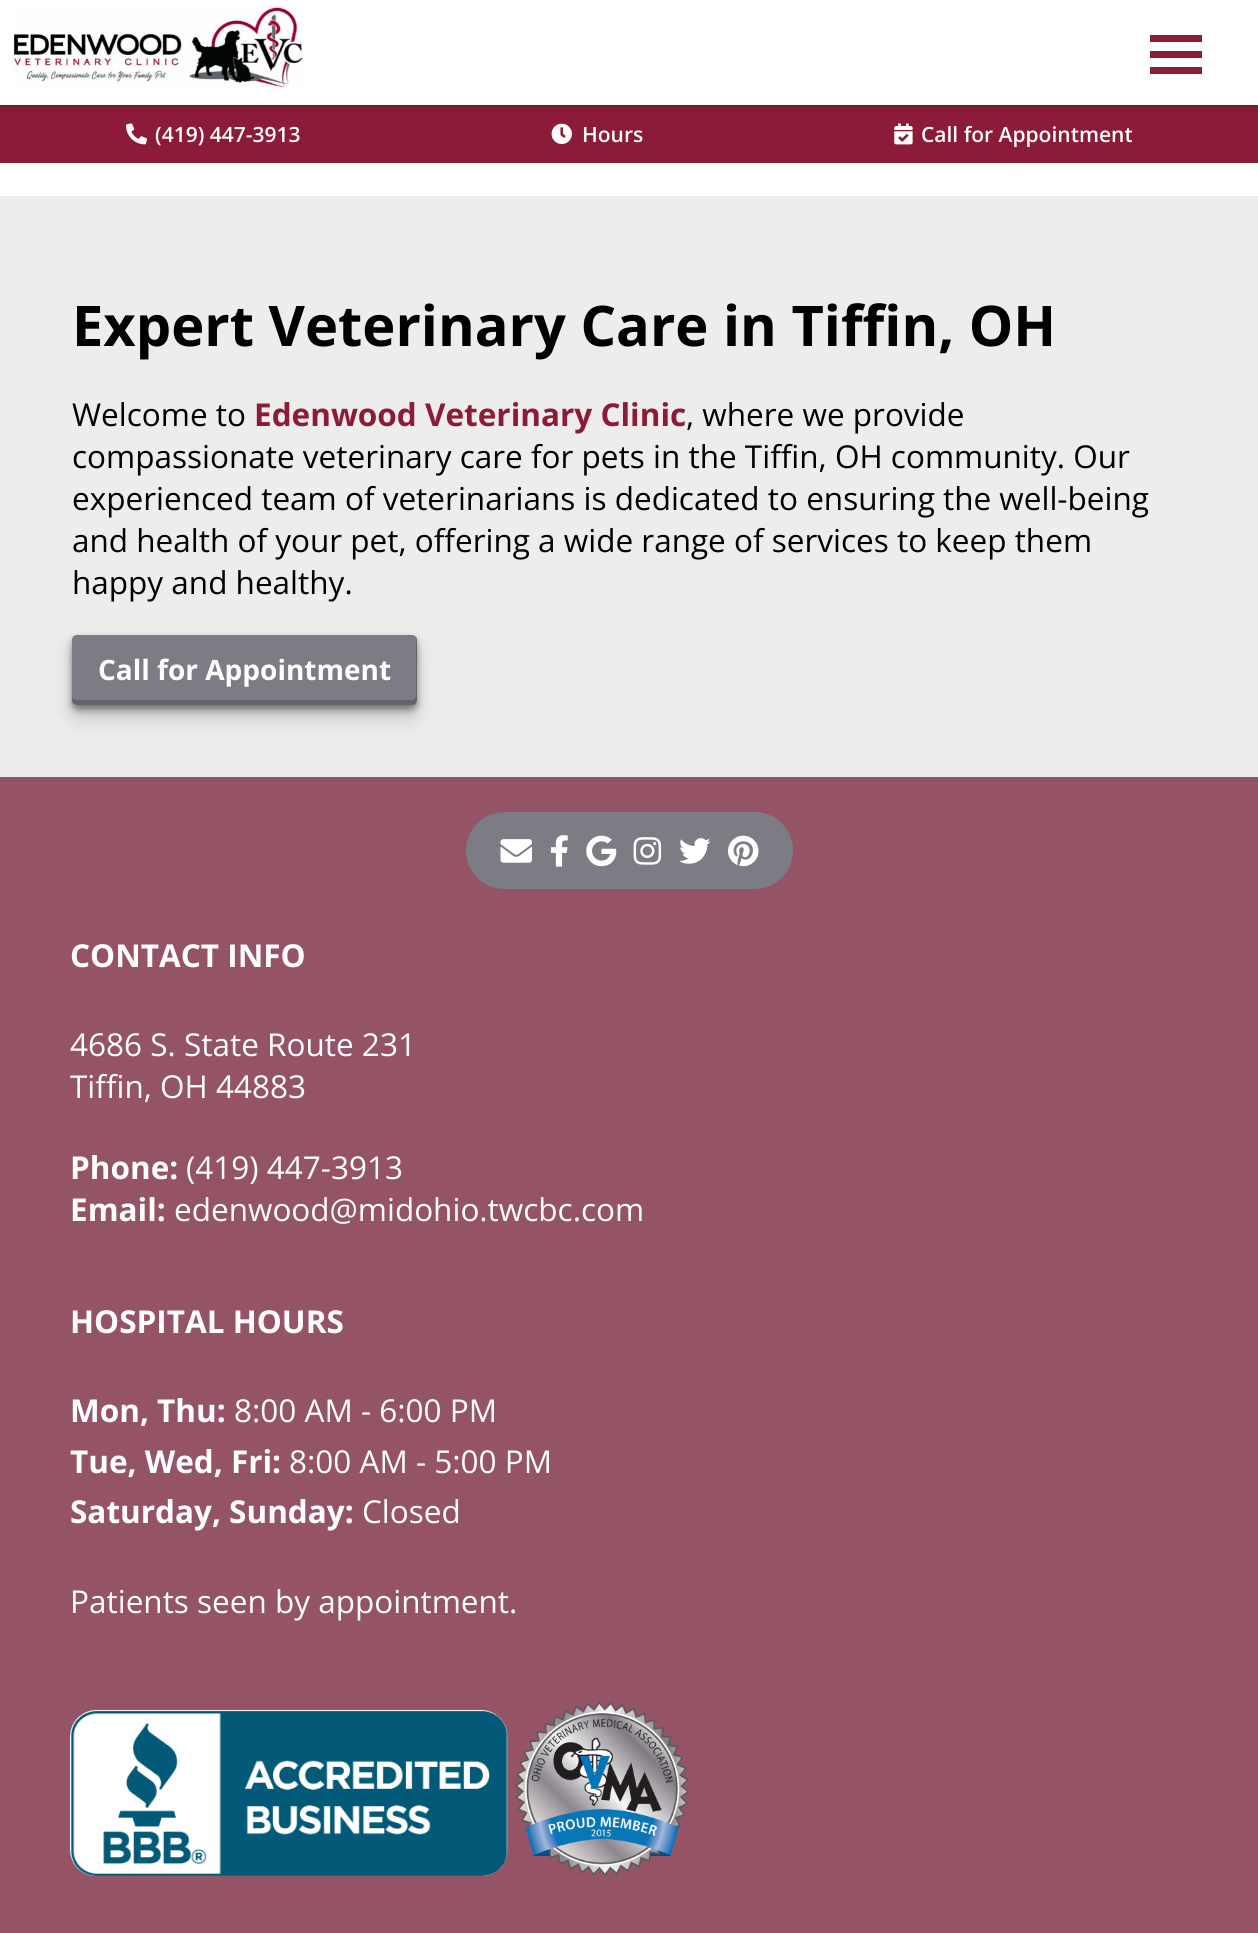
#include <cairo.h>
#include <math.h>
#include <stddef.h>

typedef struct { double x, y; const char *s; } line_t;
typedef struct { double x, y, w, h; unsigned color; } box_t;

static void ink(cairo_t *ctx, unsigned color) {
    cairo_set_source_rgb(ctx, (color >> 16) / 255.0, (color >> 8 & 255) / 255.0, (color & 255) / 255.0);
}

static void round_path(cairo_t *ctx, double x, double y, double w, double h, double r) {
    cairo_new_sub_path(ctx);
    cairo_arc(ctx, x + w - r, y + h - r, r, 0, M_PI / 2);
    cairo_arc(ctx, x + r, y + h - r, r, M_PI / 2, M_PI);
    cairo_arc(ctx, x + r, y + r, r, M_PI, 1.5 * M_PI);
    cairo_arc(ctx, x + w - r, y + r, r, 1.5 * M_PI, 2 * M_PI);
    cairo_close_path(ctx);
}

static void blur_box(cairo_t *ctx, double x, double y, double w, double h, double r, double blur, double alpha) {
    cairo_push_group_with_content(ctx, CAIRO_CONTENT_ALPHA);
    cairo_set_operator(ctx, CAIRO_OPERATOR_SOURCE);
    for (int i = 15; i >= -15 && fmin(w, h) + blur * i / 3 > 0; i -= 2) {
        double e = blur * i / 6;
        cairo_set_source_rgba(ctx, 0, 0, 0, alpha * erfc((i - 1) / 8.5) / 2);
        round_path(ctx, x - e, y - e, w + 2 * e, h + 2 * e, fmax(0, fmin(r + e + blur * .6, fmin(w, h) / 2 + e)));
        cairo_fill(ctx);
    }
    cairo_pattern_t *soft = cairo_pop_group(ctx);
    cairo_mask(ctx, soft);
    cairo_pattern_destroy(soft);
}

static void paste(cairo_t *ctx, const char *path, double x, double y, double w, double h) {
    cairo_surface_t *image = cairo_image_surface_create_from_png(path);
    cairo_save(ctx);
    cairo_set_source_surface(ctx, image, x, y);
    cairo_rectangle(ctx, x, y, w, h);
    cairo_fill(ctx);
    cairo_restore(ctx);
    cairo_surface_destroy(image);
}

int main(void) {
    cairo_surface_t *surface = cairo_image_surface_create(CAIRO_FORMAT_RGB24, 1258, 1933);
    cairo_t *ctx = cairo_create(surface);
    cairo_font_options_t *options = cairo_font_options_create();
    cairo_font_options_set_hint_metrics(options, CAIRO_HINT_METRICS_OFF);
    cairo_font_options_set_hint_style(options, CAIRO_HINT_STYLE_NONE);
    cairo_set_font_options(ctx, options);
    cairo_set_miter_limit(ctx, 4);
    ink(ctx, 0xFFFFFF);
    cairo_paint(ctx);
    ink(ctx, 0x8C1B38);
    cairo_rectangle(ctx, 0, 105, 1258, 58);
    cairo_fill(ctx);
    ink(ctx, 0x000000);
    blur_box(ctx, 0, 2, 1258, 105, 0, 3.5, 0.2);
    ink(ctx, 0xFFFFFF);
    cairo_rectangle(ctx, 0, 0, 1258, 105);
    cairo_fill(ctx);
    paste(ctx, "media/1.png", 13, 6, 290, 82);
    {
        static const box_t items[] = {
            {1150, 35, 52, 7, 0x8C1B38},
            {1150, 51, 52, 7, 0x8C1B38},
            {1150, 67, 52, 7, 0x8C1B38},
        };
        for (size_t i = 0; i < sizeof items / sizeof *items; i++) {
            ink(ctx, items[i].color);
            cairo_rectangle(ctx, items[i].x, items[i].y, items[i].w, items[i].h);
            cairo_fill(ctx);
        }
    }
    paste(ctx, "media/2.png", 126, 123, 21, 22);
    cairo_select_font_face(ctx, "Open Sans SemiBold", CAIRO_FONT_SLANT_NORMAL, CAIRO_FONT_WEIGHT_NORMAL);
    cairo_set_font_size(ctx, 21);
    ink(ctx, 0xFFFFFF);
    cairo_move_to(ctx, 155, 142);
    cairo_show_text(ctx, "(419) 447-3913");
    paste(ctx, "media/3.png", 551, 123, 21, 21);
    cairo_move_to(ctx, 582, 142);
    cairo_show_text(ctx, "Hours");
    paste(ctx, "media/4.png", 894, 123, 19, 22);
    cairo_move_to(ctx, 921, 142);
    cairo_show_text(ctx, "Call for Appointment");
    ink(ctx, 0xEDEDED);
    cairo_rectangle(ctx, 0, 196, 1258, 581);
    cairo_fill(ctx);
    cairo_select_font_face(ctx, "Open Sans", CAIRO_FONT_SLANT_NORMAL, CAIRO_FONT_WEIGHT_BOLD);
    cairo_set_font_size(ctx, 56);
    ink(ctx, 0x000000);
    cairo_move_to(ctx, 72, 346);
    cairo_show_text(ctx, "Expert Veterinary Care in Tiffin, OH");
    cairo_select_font_face(ctx, "Open Sans", CAIRO_FONT_SLANT_NORMAL, CAIRO_FONT_WEIGHT_NORMAL);
    cairo_set_font_size(ctx, 31.5);
    cairo_move_to(ctx, 72, 426);
    cairo_show_text(ctx, "Welcome to");
    cairo_select_font_face(ctx, "Open Sans", CAIRO_FONT_SLANT_NORMAL, CAIRO_FONT_WEIGHT_BOLD);
    ink(ctx, 0x8C1B38);
    cairo_move_to(ctx, 254, 426);
    cairo_show_text(ctx, "Edenwood Veterinary Clinic");
    cairo_select_font_face(ctx, "Open Sans", CAIRO_FONT_SLANT_NORMAL, CAIRO_FONT_WEIGHT_NORMAL);
    ink(ctx, 0x000000);
    {
        static const line_t items[] = {
            {686, 426, ", where we provide"},
            {72, 468, "compassionate veterinary care for pets in the Tiffin, OH community. Our"},
            {72, 510, "experienced team of veterinarians is dedicated to ensuring the well-being"},
            {72, 552, "and health of your pet, offering a wide range of services to keep them"},
            {72, 594, "happy and healthy."},
        };
        for (size_t i = 0; i < sizeof items / sizeof *items; i++) {
            cairo_move_to(ctx, items[i].x, items[i].y);
            cairo_show_text(ctx, items[i].s);
        }
    }
    ink(ctx, 0x000000);
    blur_box(ctx, 77, 653, 334, 59, 0, 11.5, 0.3);
    blur_box(ctx, 72, 639, 345, 70, 5, 3.5, 0.4);
    ink(ctx, 0x7C7C84);
    round_path(ctx, 72, 635, 345, 70, 5);
    cairo_fill(ctx);
    cairo_set_source_rgba(ctx, 0, 0, 0, 0.2);
    cairo_new_path(ctx);
    cairo_move_to(ctx, 72, 695);
    cairo_line_to(ctx, 72, 700);
    cairo_curve_to(ctx, 72, 703, 74, 705, 77, 705);
    cairo_line_to(ctx, 412, 705);
    cairo_curve_to(ctx, 415, 705, 417, 703, 417, 700);
    cairo_line_to(ctx, 417, 640);
    cairo_curve_to(ctx, 417, 639, 417, 638, 416, 637);
    cairo_line_to(ctx, 416, 695);
    cairo_curve_to(ctx, 416, 698, 414, 700, 411, 700);
    cairo_line_to(ctx, 77, 700);
    cairo_curve_to(ctx, 74, 700, 72, 698, 72, 695);
    cairo_close_path(ctx);
    cairo_fill(ctx);
    cairo_select_font_face(ctx, "Open Sans", CAIRO_FONT_SLANT_NORMAL, CAIRO_FONT_WEIGHT_BOLD);
    cairo_set_font_size(ctx, 28);
    ink(ctx, 0xFFFFFF);
    cairo_move_to(ctx, 98, 680);
    cairo_show_text(ctx, "Call for Appointment");
    ink(ctx, 0x955366);
    cairo_rectangle(ctx, 0, 777, 1258, 1156);
    cairo_fill(ctx);
    ink(ctx, 0x7C7C84);
    round_path(ctx, 466, 812, 327, 77, 38.5);
    cairo_fill(ctx);
    paste(ctx, "media/5.png", 500, 839, 32, 24);
    paste(ctx, "media/6.png", 550, 835, 18, 32);
    paste(ctx, "media/7.png", 586, 835, 31, 32);
    paste(ctx, "media/8.png", 633, 837, 29, 28);
    paste(ctx, "media/9.png", 679, 838, 32, 26);
    paste(ctx, "media/10.png", 728, 835, 31, 32);
    cairo_set_font_size(ctx, 31.5);
    ink(ctx, 0xFFFFFF);
    cairo_move_to(ctx, 70, 967);
    cairo_show_text(ctx, "CONTACT INFO");
    cairo_select_font_face(ctx, "Open Sans", CAIRO_FONT_SLANT_NORMAL, CAIRO_FONT_WEIGHT_NORMAL);
    cairo_move_to(ctx, 70, 1056);
    cairo_show_text(ctx, "4686 S. State Route 231");
    cairo_move_to(ctx, 70, 1098);
    cairo_show_text(ctx, "Tiffin, OH 44883");
    cairo_select_font_face(ctx, "Open Sans", CAIRO_FONT_SLANT_NORMAL, CAIRO_FONT_WEIGHT_BOLD);
    cairo_move_to(ctx, 70, 1179);
    cairo_show_text(ctx, "Phone:");
    cairo_select_font_face(ctx, "Open Sans", CAIRO_FONT_SLANT_NORMAL, CAIRO_FONT_WEIGHT_NORMAL);
    cairo_move_to(ctx, 186, 1179);
    cairo_show_text(ctx, "(419) 447-3913");
    cairo_select_font_face(ctx, "Open Sans", CAIRO_FONT_SLANT_NORMAL, CAIRO_FONT_WEIGHT_BOLD);
    cairo_move_to(ctx, 70, 1221);
    cairo_show_text(ctx, "Email:");
    cairo_select_font_face(ctx, "Open Sans", CAIRO_FONT_SLANT_NORMAL, CAIRO_FONT_WEIGHT_NORMAL);
    cairo_move_to(ctx, 174, 1221);
    cairo_show_text(ctx, "edenwood@midohio.twcbc.com");
    cairo_select_font_face(ctx, "Open Sans", CAIRO_FONT_SLANT_NORMAL, CAIRO_FONT_WEIGHT_BOLD);
    cairo_move_to(ctx, 70, 1333);
    cairo_show_text(ctx, "HOSPITAL HOURS");
    cairo_move_to(ctx, 70, 1422);
    cairo_show_text(ctx, "Mon, Thu:");
    cairo_select_font_face(ctx, "Open Sans", CAIRO_FONT_SLANT_NORMAL, CAIRO_FONT_WEIGHT_NORMAL);
    cairo_move_to(ctx, 234, 1422);
    cairo_show_text(ctx, "8:00 AM - 6:00 PM");
    cairo_select_font_face(ctx, "Open Sans", CAIRO_FONT_SLANT_NORMAL, CAIRO_FONT_WEIGHT_BOLD);
    cairo_move_to(ctx, 70, 1473);
    cairo_show_text(ctx, "Tue, Wed, Fri:");
    cairo_select_font_face(ctx, "Open Sans", CAIRO_FONT_SLANT_NORMAL, CAIRO_FONT_WEIGHT_NORMAL);
    cairo_move_to(ctx, 289, 1473);
    cairo_show_text(ctx, "8:00 AM - 5:00 PM");
    cairo_select_font_face(ctx, "Open Sans", CAIRO_FONT_SLANT_NORMAL, CAIRO_FONT_WEIGHT_BOLD);
    cairo_move_to(ctx, 70, 1523);
    cairo_show_text(ctx, "Saturday, Sunday:");
    cairo_select_font_face(ctx, "Open Sans", CAIRO_FONT_SLANT_NORMAL, CAIRO_FONT_WEIGHT_NORMAL);
    cairo_move_to(ctx, 362, 1523);
    cairo_show_text(ctx, "Closed");
    cairo_move_to(ctx, 70, 1613);
    cairo_show_text(ctx, "Patients seen by appointment.");
    paste(ctx, "media/11.png", 70, 1710, 438, 167);
    paste(ctx, "media/12.png", 514, 1701, 176, 176);
    cairo_surface_write_to_png(surface, "image.png");
    cairo_font_options_destroy(options);
    cairo_destroy(ctx);
    cairo_surface_destroy(surface);
    return 0;
}
